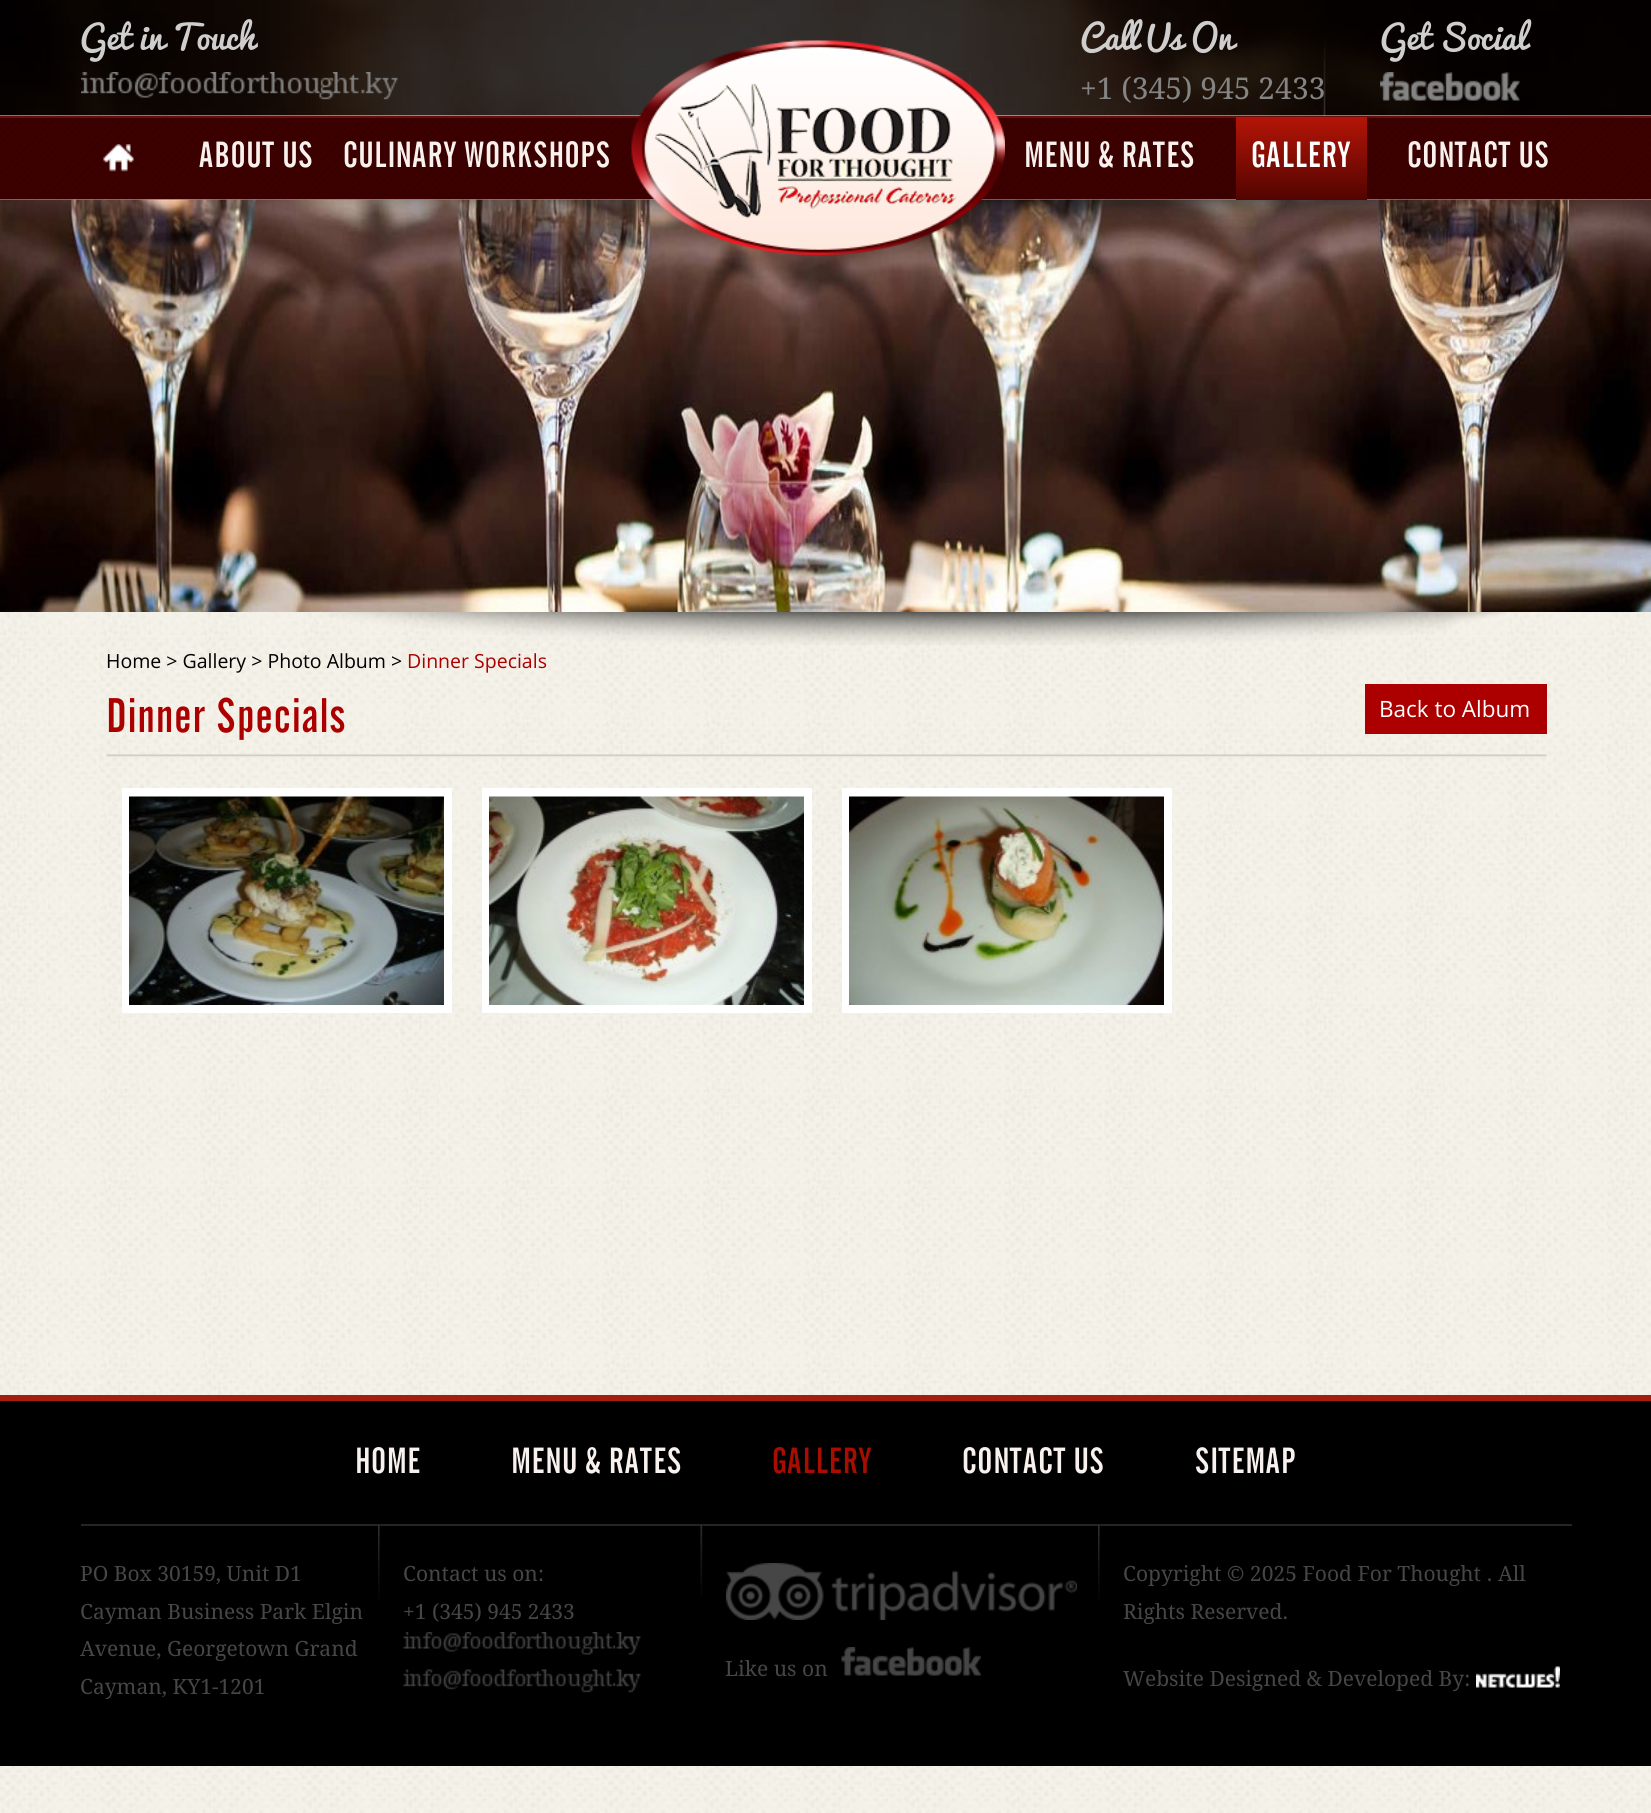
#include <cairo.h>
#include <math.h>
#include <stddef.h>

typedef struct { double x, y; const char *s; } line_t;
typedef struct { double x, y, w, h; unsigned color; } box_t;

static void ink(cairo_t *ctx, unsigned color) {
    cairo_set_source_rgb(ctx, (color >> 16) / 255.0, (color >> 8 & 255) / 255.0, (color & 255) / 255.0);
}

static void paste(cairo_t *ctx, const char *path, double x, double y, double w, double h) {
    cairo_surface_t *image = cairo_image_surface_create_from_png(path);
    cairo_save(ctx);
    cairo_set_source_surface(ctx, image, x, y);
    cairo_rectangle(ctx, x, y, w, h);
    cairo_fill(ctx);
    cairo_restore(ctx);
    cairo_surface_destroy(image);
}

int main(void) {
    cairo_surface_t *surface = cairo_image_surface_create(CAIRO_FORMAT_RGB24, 1651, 1813);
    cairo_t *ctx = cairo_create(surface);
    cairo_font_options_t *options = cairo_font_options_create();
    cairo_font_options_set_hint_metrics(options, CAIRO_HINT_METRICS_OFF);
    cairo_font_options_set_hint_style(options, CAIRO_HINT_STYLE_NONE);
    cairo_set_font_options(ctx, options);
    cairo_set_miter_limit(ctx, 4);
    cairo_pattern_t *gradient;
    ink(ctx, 0xFFFFFF);
    cairo_paint(ctx);
    paste(ctx, "media/1.png", 0, 115, 1651, 1698);
    paste(ctx, "media/2.png", 0, 0, 1651, 116);
    cairo_select_font_face(ctx, "Pacifico", CAIRO_FONT_SLANT_NORMAL, CAIRO_FONT_WEIGHT_NORMAL);
    cairo_set_font_size(ctx, 33);
    ink(ctx, 0xCFCECE);
    cairo_move_to(ctx, 80, 50);
    cairo_show_text(ctx, "Get in Touch");
    paste(ctx, "media/3.png", 81, 72, 317, 28);
    cairo_move_to(ctx, 1080, 50);
    cairo_show_text(ctx, "Call Us On");
    cairo_select_font_face(ctx, "Droid Serif", CAIRO_FONT_SLANT_NORMAL, CAIRO_FONT_WEIGHT_NORMAL);
    cairo_set_font_size(ctx, 30);
    ink(ctx, 0x848484);
    cairo_move_to(ctx, 1080, 99);
    cairo_show_text(ctx, "+1 (345) 945 2433");
    cairo_select_font_face(ctx, "Pacifico", CAIRO_FONT_SLANT_NORMAL, CAIRO_FONT_WEIGHT_NORMAL);
    cairo_set_font_size(ctx, 33);
    ink(ctx, 0xCFCECE);
    cairo_move_to(ctx, 1380, 50);
    cairo_show_text(ctx, "Get Social");
    paste(ctx, "media/4.png", 1380, 72, 140, 29);
    paste(ctx, "media/6.png", 0, 118, 1651, 82);
    ink(ctx, 0x690C0C);
    cairo_rectangle(ctx, 0, 116, 1651, 2);
    cairo_fill(ctx);
    paste(ctx, "media/8.png", 0, 199, 1651, 413);
    paste(ctx, "media/9.png", 331, 199, 1170, 33);
    paste(ctx, "media/5.png", 631, 40, 374, 215);
    paste(ctx, "media/7.png", 103, 144, 31, 28);
    cairo_select_font_face(ctx, "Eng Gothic", CAIRO_FONT_SLANT_NORMAL, CAIRO_FONT_WEIGHT_NORMAL);
    cairo_set_font_size(ctx, 36);
    ink(ctx, 0xF8F1ED);
    {
        static const line_t items[] = {
            {199, 167, "ABOUT US"},
            {343, 167, "CULINARY WORKSHOPS"},
            {1024, 167, "MENU & RATES"},
        };
        for (size_t i = 0; i < sizeof items / sizeof *items; i++) {
            cairo_move_to(ctx, items[i].x, items[i].y);
            cairo_show_text(ctx, items[i].s);
        }
    }
    gradient = cairo_pattern_create_linear(1301, 200, 1301, 117);
    cairo_pattern_add_color_stop_rgba(gradient, 0, 0.322, 0.016, 0.004, 1);
    cairo_pattern_add_color_stop_rgba(gradient, 1, 0.706, 0.082, 0.024, 1);
    cairo_set_source(ctx, gradient);
    cairo_pattern_destroy(gradient);
    cairo_rectangle(ctx, 1236, 117, 131, 83);
    cairo_fill(ctx);
    ink(ctx, 0xFFFFFF);
    cairo_move_to(ctx, 1251, 167);
    cairo_show_text(ctx, "GALLERY");
    ink(ctx, 0xF8F1ED);
    cairo_move_to(ctx, 1407, 167);
    cairo_show_text(ctx, "CONTACT US");
    paste(ctx, "media/10.png", 323, 612, 1183, 33);
    cairo_select_font_face(ctx, "Open Sans", CAIRO_FONT_SLANT_NORMAL, CAIRO_FONT_WEIGHT_NORMAL);
    cairo_set_font_size(ctx, 19.5);
    ink(ctx, 0x000000);
    cairo_move_to(ctx, 106, 668);
    cairo_show_text(ctx, "Home > Gallery > Photo Album >");
    ink(ctx, 0xAC0000);
    cairo_move_to(ctx, 407, 668);
    cairo_show_text(ctx, "Dinner Specials");
    cairo_select_font_face(ctx, "Eng Gothic", CAIRO_FONT_SLANT_NORMAL, CAIRO_FONT_WEIGHT_NORMAL);
    cairo_set_font_size(ctx, 48);
    cairo_move_to(ctx, 106, 732);
    cairo_show_text(ctx, "Dinner Specials");
    cairo_rectangle(ctx, 1365, 684, 182, 50);
    cairo_fill(ctx);
    cairo_select_font_face(ctx, "Open Sans", CAIRO_FONT_SLANT_NORMAL, CAIRO_FONT_WEIGHT_NORMAL);
    cairo_set_font_size(ctx, 22.5);
    ink(ctx, 0xFFFFFF);
    cairo_move_to(ctx, 1379, 717);
    cairo_show_text(ctx, "Back to Album");
    paste(ctx, "media/11.png", 106, 754, 1441, 4);
    cairo_rectangle(ctx, 122, 788, 330, 225);
    cairo_fill(ctx);
    paste(ctx, "media/12.png", 129, 796, 315, 209);
    cairo_rectangle(ctx, 482, 788, 330, 225);
    cairo_fill(ctx);
    paste(ctx, "media/13.png", 489, 796, 315, 209);
    cairo_rectangle(ctx, 842, 788, 330, 225);
    cairo_fill(ctx);
    paste(ctx, "media/14.png", 849, 796, 315, 209);
    {
        static const box_t items[] = {
            {0, 1401, 1651, 365, 0x000000},
            {0, 1395, 1651, 6, 0xA51D0D},
            {81, 1524, 1491, 2, 0x252525},
        };
        for (size_t i = 0; i < sizeof items / sizeof *items; i++) {
            ink(ctx, items[i].color);
            cairo_rectangle(ctx, items[i].x, items[i].y, items[i].w, items[i].h);
            cairo_fill(ctx);
        }
    }
    cairo_select_font_face(ctx, "Eng Gothic", CAIRO_FONT_SLANT_NORMAL, CAIRO_FONT_WEIGHT_NORMAL);
    cairo_set_font_size(ctx, 36);
    ink(ctx, 0xF8F1ED);
    cairo_move_to(ctx, 355, 1473);
    cairo_show_text(ctx, "HOME");
    cairo_move_to(ctx, 511, 1473);
    cairo_show_text(ctx, "MENU & RATES");
    ink(ctx, 0xA80D02);
    cairo_move_to(ctx, 772, 1473);
    cairo_show_text(ctx, "GALLERY");
    ink(ctx, 0xF8F1ED);
    cairo_move_to(ctx, 962, 1473);
    cairo_show_text(ctx, "CONTACT US");
    cairo_move_to(ctx, 1195, 1473);
    cairo_show_text(ctx, "SITEMAP");
    paste(ctx, "media/15.png", 378, 1525, 3, 75);
    cairo_select_font_face(ctx, "Droid Serif", CAIRO_FONT_SLANT_NORMAL, CAIRO_FONT_WEIGHT_NORMAL);
    cairo_set_font_size(ctx, 21);
    ink(ctx, 0x474646);
    {
        static const line_t items[] = {
            {80, 1581, "PO Box 30159, Unit D1"},
            {80, 1619, "Cayman Business Park Elgin"},
            {80, 1656, "Avenue, Georgetown Grand"},
            {80, 1694, "Cayman, KY1-1201"},
        };
        for (size_t i = 0; i < sizeof items / sizeof *items; i++) {
            cairo_move_to(ctx, items[i].x, items[i].y);
            cairo_show_text(ctx, items[i].s);
        }
    }
    paste(ctx, "media/16.png", 700, 1525, 4, 73);
    cairo_move_to(ctx, 403, 1581);
    cairo_show_text(ctx, "Contact us on:");
    cairo_move_to(ctx, 403, 1619);
    cairo_show_text(ctx, "+1 (345) 945 2433");
    paste(ctx, "media/17.png", 403, 1632, 238, 23);
    paste(ctx, "media/18.png", 403, 1669, 238, 24);
    paste(ctx, "media/15.png", 1098, 1525, 3, 75);
    paste(ctx, "media/19.png", 726, 1563, 351, 57);
    cairo_move_to(ctx, 725, 1676);
    cairo_show_text(ctx, "Like us on");
    paste(ctx, "media/20.png", 841, 1647, 140, 29);
    {
        static const line_t items[] = {
            {1123, 1581, "Copyright © 2025 Food For Thought . All"},
            {1123, 1619, "Rights Reserved."},
            {1123, 1686, "Website Designed & Developed By:"},
        };
        for (size_t i = 0; i < sizeof items / sizeof *items; i++) {
            cairo_move_to(ctx, items[i].x, items[i].y);
            cairo_show_text(ctx, items[i].s);
        }
    }
    paste(ctx, "media/21.png", 1476, 1666, 84, 22);
    cairo_surface_write_to_png(surface, "image.png");
    cairo_font_options_destroy(options);
    cairo_destroy(ctx);
    cairo_surface_destroy(surface);
    return 0;
}
